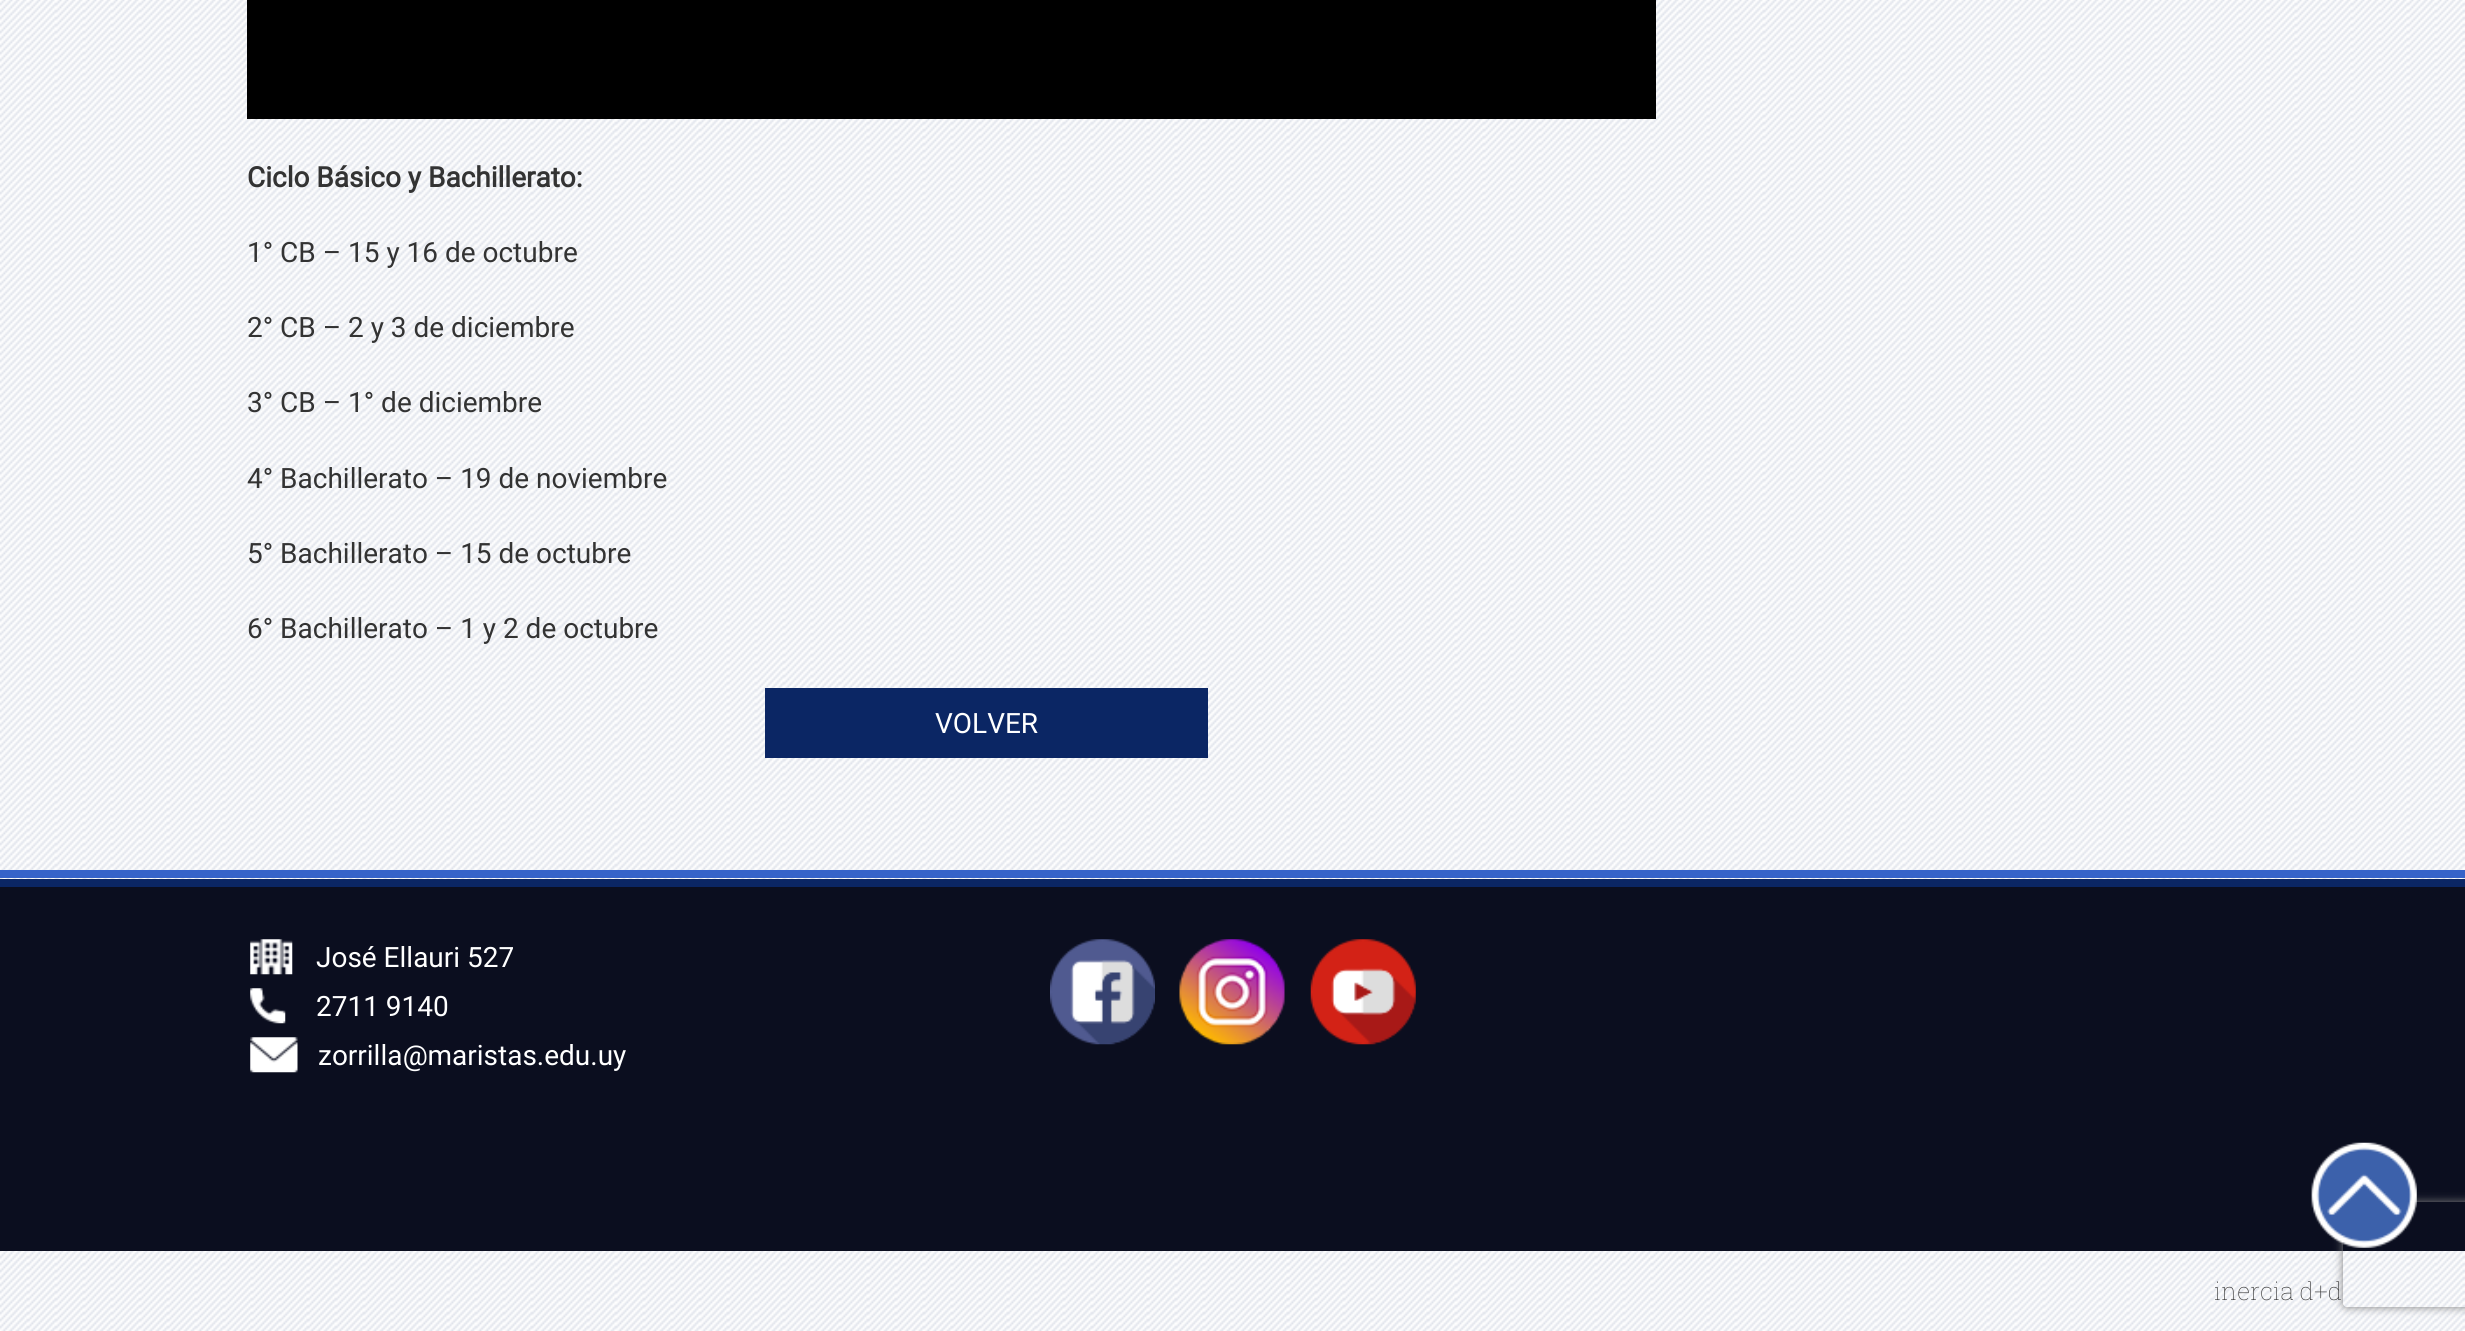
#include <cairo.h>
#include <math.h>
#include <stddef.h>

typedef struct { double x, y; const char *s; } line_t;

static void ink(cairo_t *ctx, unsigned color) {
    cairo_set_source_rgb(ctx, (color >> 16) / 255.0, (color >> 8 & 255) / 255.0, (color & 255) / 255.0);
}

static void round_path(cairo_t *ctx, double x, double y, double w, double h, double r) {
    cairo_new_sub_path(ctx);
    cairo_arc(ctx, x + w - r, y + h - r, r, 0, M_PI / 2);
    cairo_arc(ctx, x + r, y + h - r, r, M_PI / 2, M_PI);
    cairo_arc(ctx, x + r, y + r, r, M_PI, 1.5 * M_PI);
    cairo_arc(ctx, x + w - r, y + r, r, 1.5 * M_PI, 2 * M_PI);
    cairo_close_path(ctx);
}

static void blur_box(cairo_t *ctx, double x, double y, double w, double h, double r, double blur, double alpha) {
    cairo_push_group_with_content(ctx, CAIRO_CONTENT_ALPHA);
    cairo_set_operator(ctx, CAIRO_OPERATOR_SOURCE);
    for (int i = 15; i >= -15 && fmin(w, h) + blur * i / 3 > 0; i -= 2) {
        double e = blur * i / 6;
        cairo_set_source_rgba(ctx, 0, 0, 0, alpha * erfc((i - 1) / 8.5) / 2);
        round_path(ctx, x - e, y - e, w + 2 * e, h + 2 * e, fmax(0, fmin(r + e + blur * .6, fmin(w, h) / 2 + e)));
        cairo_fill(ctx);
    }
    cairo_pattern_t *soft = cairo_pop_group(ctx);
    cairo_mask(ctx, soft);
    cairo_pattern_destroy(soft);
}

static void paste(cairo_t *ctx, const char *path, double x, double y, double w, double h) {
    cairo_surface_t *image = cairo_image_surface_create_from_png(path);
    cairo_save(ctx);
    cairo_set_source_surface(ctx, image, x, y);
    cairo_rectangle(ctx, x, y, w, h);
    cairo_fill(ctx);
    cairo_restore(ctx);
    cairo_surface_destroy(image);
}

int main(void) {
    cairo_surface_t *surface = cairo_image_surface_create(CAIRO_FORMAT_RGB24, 2465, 1331);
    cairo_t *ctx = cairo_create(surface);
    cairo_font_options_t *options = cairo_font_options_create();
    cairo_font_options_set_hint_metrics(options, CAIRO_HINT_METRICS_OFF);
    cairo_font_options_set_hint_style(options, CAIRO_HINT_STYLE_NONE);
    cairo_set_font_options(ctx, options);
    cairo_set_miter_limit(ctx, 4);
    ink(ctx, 0xFFFFFF);
    cairo_paint(ctx);
    paste(ctx, "media/1.png", 0, 0, 2465, 1331);
    ink(ctx, 0x000000);
    cairo_rectangle(ctx, 247, 0, 1409, 119);
    cairo_fill(ctx);
    cairo_select_font_face(ctx, "Roboto", CAIRO_FONT_SLANT_NORMAL, CAIRO_FONT_WEIGHT_BOLD);
    cairo_set_font_size(ctx, 28);
    ink(ctx, 0x333333);
    cairo_move_to(ctx, 247, 187);
    cairo_show_text(ctx, "Ciclo Básico y Bachillerato:");
    cairo_select_font_face(ctx, "Roboto", CAIRO_FONT_SLANT_NORMAL, CAIRO_FONT_WEIGHT_NORMAL);
    {
        static const line_t items[] = {
            {247, 262, "1° CB – 15 y 16 de octubre"},
            {247, 337, "2° CB – 2 y 3 de diciembre"},
            {247, 412, "3° CB – 1° de diciembre"},
            {247, 488, "4° Bachillerato – 19 de noviembre"},
            {247, 563, "5° Bachillerato – 15 de octubre"},
            {247, 638, "6° Bachillerato – 1 y 2 de octubre"},
        };
        for (size_t i = 0; i < sizeof items / sizeof *items; i++) {
            cairo_move_to(ctx, items[i].x, items[i].y);
            cairo_show_text(ctx, items[i].s);
        }
    }
    ink(ctx, 0x0B2664);
    cairo_rectangle(ctx, 765, 688, 443, 70);
    cairo_fill(ctx);
    ink(ctx, 0xFFFFFF);
    cairo_move_to(ctx, 935, 733);
    cairo_show_text(ctx, "VOLVER");
    ink(ctx, 0x3663C9);
    cairo_new_path(ctx);
    cairo_move_to(ctx, 0, 870);
    cairo_line_to(ctx, 0, 878);
    cairo_line_to(ctx, 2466, 878);
    cairo_line_to(ctx, 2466, 1243);
    cairo_line_to(ctx, 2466, 870);
    cairo_close_path(ctx);
    cairo_fill(ctx);
    ink(ctx, 0x0B0E1F);
    cairo_rectangle(ctx, 0, 887, 2465, 364);
    cairo_fill(ctx);
    ink(ctx, 0x0B2664);
    cairo_rectangle(ctx, 0, 879, 2465, 8);
    cairo_fill(ctx);
    paste(ctx, "media/2.png", 250, 939, 43, 36);
    ink(ctx, 0xFFFFFF);
    cairo_move_to(ctx, 316, 967);
    cairo_show_text(ctx, "José Ellauri 527");
    paste(ctx, "media/3.png", 250, 988, 36, 36);
    cairo_move_to(ctx, 316, 1016);
    cairo_show_text(ctx, "2711 9140");
    paste(ctx, "media/4.png", 250, 1037, 48, 36);
    cairo_move_to(ctx, 318, 1065);
    cairo_show_text(ctx, "zorrilla@maristas.edu.uy");
    paste(ctx, "media/5.png", 1050, 939, 105, 106);
    paste(ctx, "media/6.png", 1179, 939, 106, 106);
    paste(ctx, "media/7.png", 1310, 939, 106, 106);
    cairo_save(ctx);
    cairo_set_fill_rule(ctx, CAIRO_FILL_RULE_EVEN_ODD);
    cairo_new_path(ctx);
    cairo_move_to(ctx, 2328, 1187);
    cairo_line_to(ctx, 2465, 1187);
    cairo_line_to(ctx, 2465, 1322);
    cairo_line_to(ctx, 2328, 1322);
    cairo_close_path(ctx);
    cairo_move_to(ctx, 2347, 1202);
    cairo_line_to(ctx, 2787, 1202);
    cairo_curve_to(ctx, 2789, 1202, 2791, 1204, 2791, 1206);
    cairo_line_to(ctx, 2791, 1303);
    cairo_curve_to(ctx, 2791, 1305, 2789, 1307, 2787, 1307);
    cairo_line_to(ctx, 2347, 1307);
    cairo_curve_to(ctx, 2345, 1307, 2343, 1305, 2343, 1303);
    cairo_line_to(ctx, 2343, 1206);
    cairo_curve_to(ctx, 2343, 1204, 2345, 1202, 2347, 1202);
    cairo_close_path(ctx);
    cairo_clip(ctx);
    ink(ctx, 0x808080);
    blur_box(ctx, 2343, 1202, 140, 105, 4, 4.5, 1);
    cairo_restore(ctx);
    paste(ctx, "media/8.png", 2311, 1142, 106, 106);
    cairo_select_font_face(ctx, "Roboto Slab Thin", CAIRO_FONT_SLANT_NORMAL, CAIRO_FONT_WEIGHT_NORMAL);
    cairo_set_font_size(ctx, 24.5);
    ink(ctx, 0x333333);
    cairo_move_to(ctx, 2214, 1300);
    cairo_show_text(ctx, "inercia d+d");
    cairo_surface_write_to_png(surface, "image.png");
    cairo_font_options_destroy(options);
    cairo_destroy(ctx);
    cairo_surface_destroy(surface);
    return 0;
}
